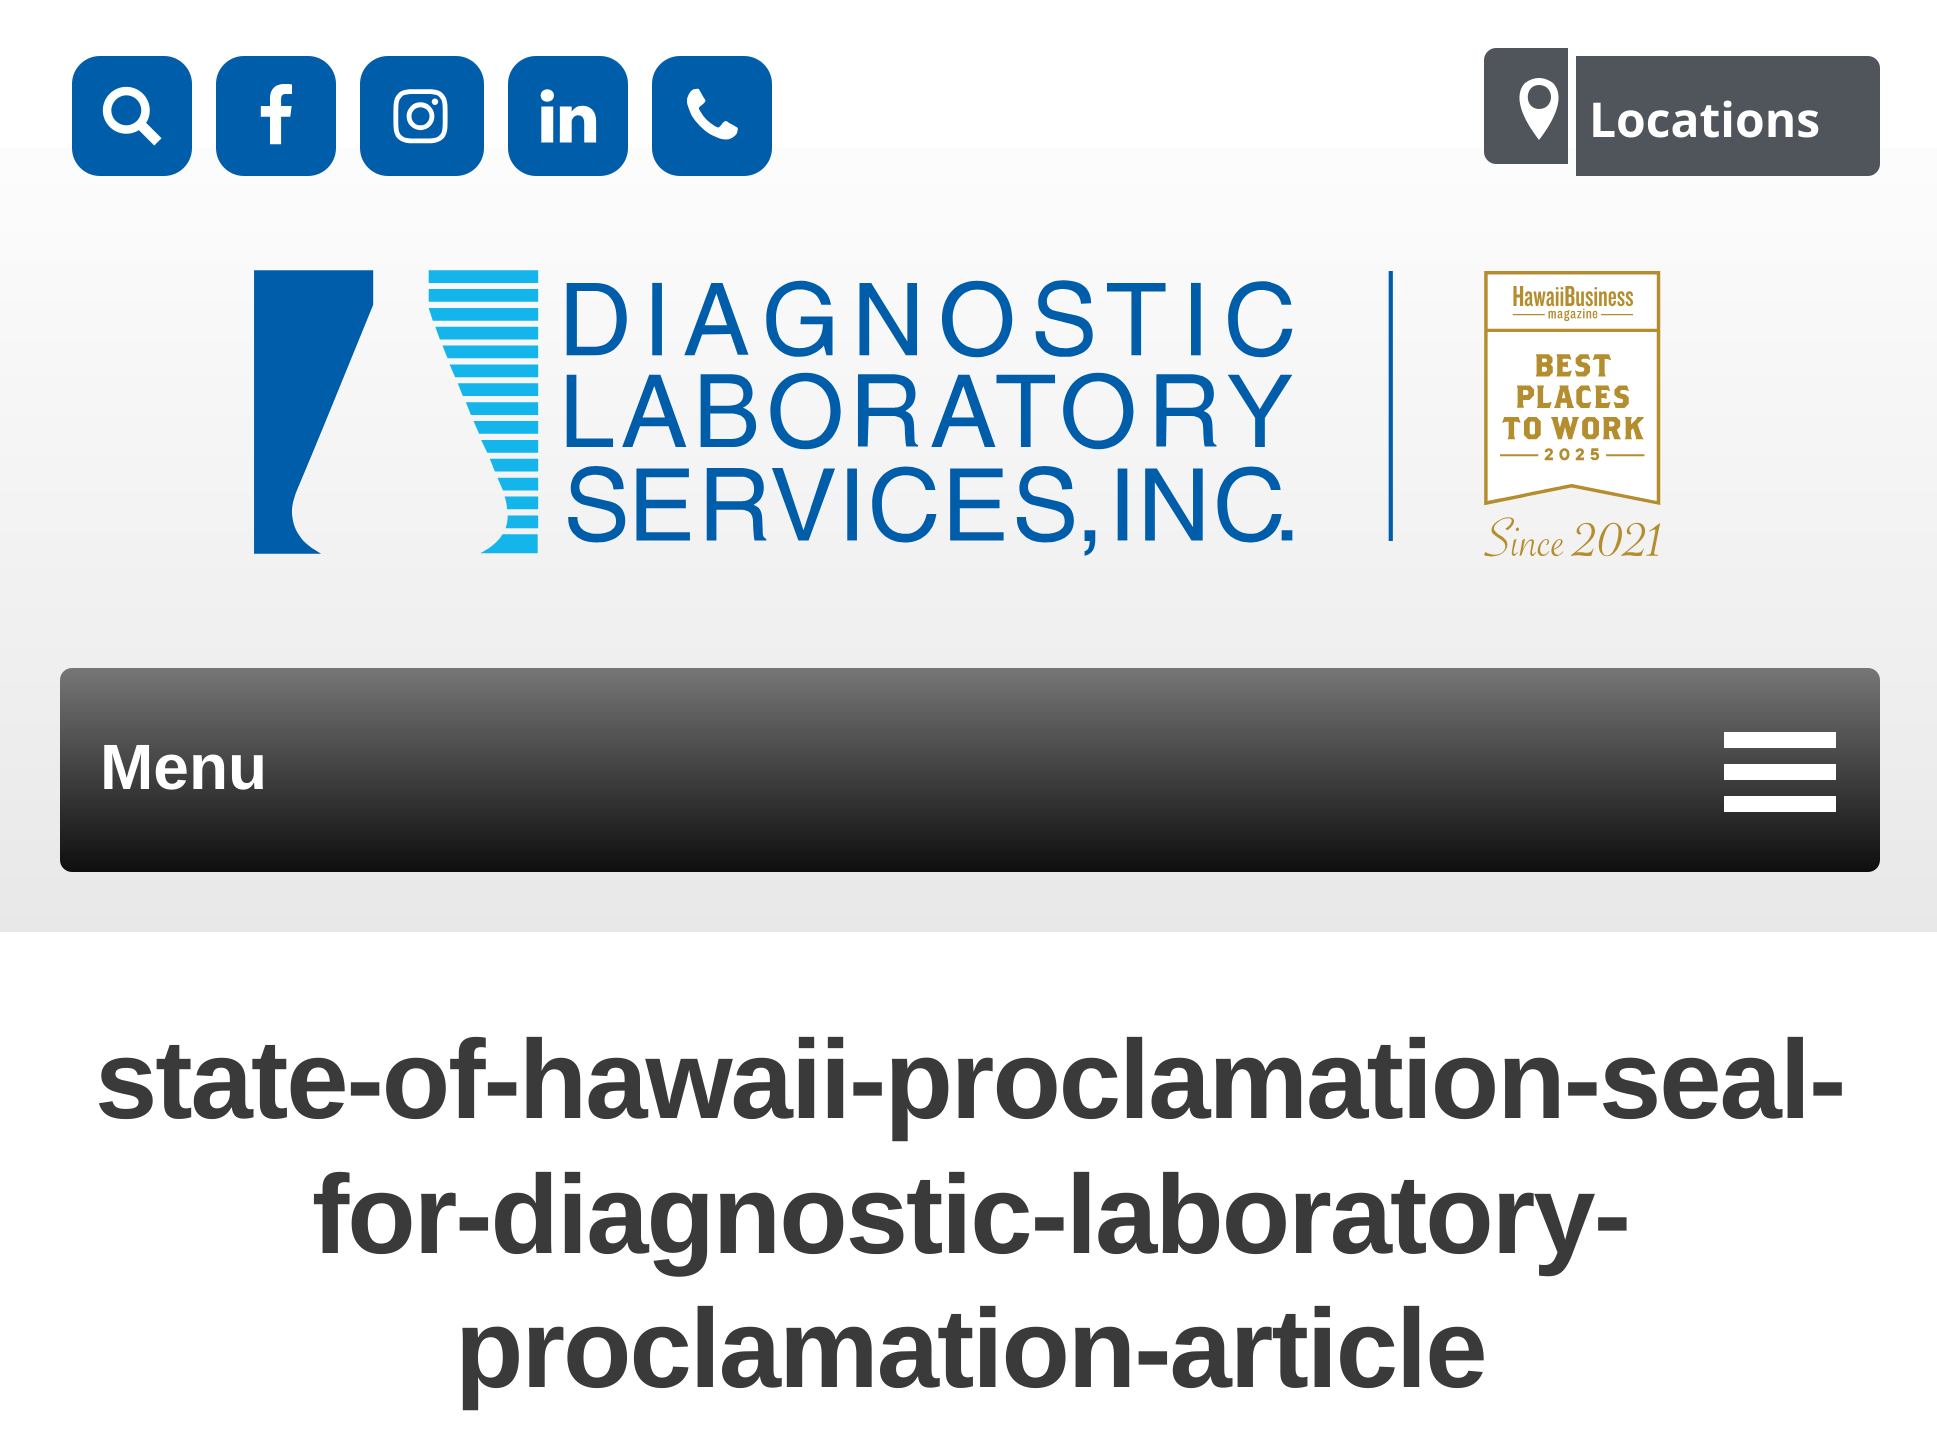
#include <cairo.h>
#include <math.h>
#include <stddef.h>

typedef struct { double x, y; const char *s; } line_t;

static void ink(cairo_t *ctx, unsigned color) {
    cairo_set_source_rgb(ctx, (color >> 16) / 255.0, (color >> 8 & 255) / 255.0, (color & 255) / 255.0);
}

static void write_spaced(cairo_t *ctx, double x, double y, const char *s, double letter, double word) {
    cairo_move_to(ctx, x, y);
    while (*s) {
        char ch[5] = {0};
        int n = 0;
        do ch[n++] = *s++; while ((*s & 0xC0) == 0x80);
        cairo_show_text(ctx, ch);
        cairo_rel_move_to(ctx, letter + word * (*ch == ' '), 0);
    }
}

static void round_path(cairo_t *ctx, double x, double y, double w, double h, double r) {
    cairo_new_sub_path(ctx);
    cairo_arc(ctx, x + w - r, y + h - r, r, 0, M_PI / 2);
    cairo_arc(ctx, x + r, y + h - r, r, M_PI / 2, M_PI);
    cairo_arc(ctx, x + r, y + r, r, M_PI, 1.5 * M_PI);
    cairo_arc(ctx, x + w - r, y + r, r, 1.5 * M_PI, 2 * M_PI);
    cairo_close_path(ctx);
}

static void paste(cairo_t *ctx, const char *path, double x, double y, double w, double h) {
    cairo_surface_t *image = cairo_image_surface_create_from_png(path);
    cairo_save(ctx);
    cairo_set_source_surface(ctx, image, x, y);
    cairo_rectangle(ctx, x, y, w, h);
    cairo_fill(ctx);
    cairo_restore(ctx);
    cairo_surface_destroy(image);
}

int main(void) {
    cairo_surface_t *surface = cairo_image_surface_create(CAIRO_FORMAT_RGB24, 1937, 1429);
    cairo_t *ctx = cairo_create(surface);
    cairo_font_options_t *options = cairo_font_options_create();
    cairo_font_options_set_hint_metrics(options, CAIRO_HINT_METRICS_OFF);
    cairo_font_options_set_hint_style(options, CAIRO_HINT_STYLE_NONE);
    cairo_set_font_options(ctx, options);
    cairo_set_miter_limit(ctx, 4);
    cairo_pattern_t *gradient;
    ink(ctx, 0xFFFFFF);
    cairo_paint(ctx);
    gradient = cairo_pattern_create_linear(970, 52, 970, 932);
    cairo_pattern_add_color_stop_rgba(gradient, 0, 1, 1, 1, 1);
    cairo_pattern_add_color_stop_rgba(gradient, 1, 0.91, 0.91, 0.91, 1);
    cairo_set_source(ctx, gradient);
    cairo_pattern_destroy(gradient);
    cairo_rectangle(ctx, 0, 148, 1937, 784);
    cairo_fill(ctx);
    ink(ctx, 0x005DA9);
    round_path(ctx, 72, 56, 120, 120, 28);
    cairo_fill(ctx);
    paste(ctx, "media/1.png", 102, 86, 60, 60);
    round_path(ctx, 216, 56, 120, 120, 28);
    cairo_fill(ctx);
    paste(ctx, "media/2.png", 260, 84, 33, 61);
    round_path(ctx, 360, 56, 124, 120, 28);
    cairo_fill(ctx);
    paste(ctx, "media/3.png", 393, 89, 55, 55);
    round_path(ctx, 508, 56, 120, 120, 28);
    cairo_fill(ctx);
    paste(ctx, "media/4.png", 540, 89, 57, 54);
    round_path(ctx, 652, 56, 120, 120, 28);
    cairo_fill(ctx);
    paste(ctx, "media/5.png", 686, 88, 52, 52);
    ink(ctx, 0x4F555A);
    cairo_new_path(ctx);
    cairo_move_to(ctx, 1576, 56);
    cairo_line_to(ctx, 1868, 56);
    cairo_curve_to(ctx, 1874.5, 56, 1880, 61.5, 1880, 68);
    cairo_line_to(ctx, 1880, 164);
    cairo_curve_to(ctx, 1880, 170.5, 1874.5, 176, 1868, 176);
    cairo_line_to(ctx, 1576, 176);
    cairo_close_path(ctx);
    cairo_fill(ctx);
    cairo_select_font_face(ctx, "Open Sans", CAIRO_FONT_SLANT_NORMAL, CAIRO_FONT_WEIGHT_BOLD);
    cairo_set_font_size(ctx, 48);
    ink(ctx, 0xFFFFFF);
    cairo_move_to(ctx, 1589, 137);
    cairo_show_text(ctx, "Locations");
    ink(ctx, 0x4F555A);
    cairo_new_path(ctx);
    cairo_move_to(ctx, 1496, 48);
    cairo_line_to(ctx, 1568, 48);
    cairo_line_to(ctx, 1568, 164);
    cairo_line_to(ctx, 1496, 164);
    cairo_curve_to(ctx, 1489.5, 164, 1484, 158.5, 1484, 152);
    cairo_line_to(ctx, 1484, 60);
    cairo_curve_to(ctx, 1484, 53.5, 1489.5, 48, 1496, 48);
    cairo_close_path(ctx);
    cairo_fill(ctx);
    ink(ctx, 0xFFFFFF);
    cairo_new_path(ctx);
    cairo_move_to(ctx, 1539, 78);
    cairo_curve_to(ctx, 1534, 78, 1529, 80, 1525, 83);
    cairo_curve_to(ctx, 1510, 99, 1529, 127, 1539, 140);
    cairo_curve_to(ctx, 1549, 127, 1568, 99, 1553, 83);
    cairo_curve_to(ctx, 1549, 80, 1544, 78, 1539, 78);
    cairo_close_path(ctx);
    cairo_move_to(ctx, 1539, 109);
    cairo_curve_to(ctx, 1524, 109, 1524, 85, 1539, 85);
    cairo_curve_to(ctx, 1555, 85, 1555, 109, 1539, 109);
    cairo_close_path(ctx);
    cairo_fill(ctx);
    paste(ctx, "media/6.png", 254, 270, 1407, 287);
    gradient = cairo_pattern_create_linear(970, 668, 970, 872);
    cairo_pattern_add_color_stop_rgba(gradient, 0, 0.463, 0.463, 0.463, 1);
    cairo_pattern_add_color_stop_rgba(gradient, 1, 0.055, 0.055, 0.055, 1);
    cairo_set_source(ctx, gradient);
    cairo_pattern_destroy(gradient);
    round_path(ctx, 60, 668, 1820, 204, 12);
    cairo_fill(ctx);
    cairo_select_font_face(ctx, "Liberation Sans", CAIRO_FONT_SLANT_NORMAL, CAIRO_FONT_WEIGHT_BOLD);
    cairo_set_font_size(ctx, 64);
    ink(ctx, 0xFFFFFF);
    cairo_move_to(ctx, 100, 789);
    cairo_show_text(ctx, "Menu");
    cairo_new_path(ctx);
    cairo_move_to(ctx, 1724, 732);
    cairo_line_to(ctx, 1836, 732);
    cairo_line_to(ctx, 1836, 748);
    cairo_line_to(ctx, 1724, 748);
    cairo_close_path(ctx);
    cairo_move_to(ctx, 1724, 764);
    cairo_line_to(ctx, 1836, 764);
    cairo_line_to(ctx, 1836, 780);
    cairo_line_to(ctx, 1724, 780);
    cairo_close_path(ctx);
    cairo_move_to(ctx, 1724, 796);
    cairo_line_to(ctx, 1836, 796);
    cairo_line_to(ctx, 1836, 812);
    cairo_line_to(ctx, 1724, 812);
    cairo_close_path(ctx);
    cairo_fill(ctx);
    cairo_set_font_size(ctx, 112);
    ink(ctx, 0x3A3A3A);
    {
        static const line_t items[] = {
            {95, 1118, "state-of-hawaii-proclamation-seal-"},
            {312, 1253, "for-diagnostic-laboratory-"},
            {455, 1387, "proclamation-article"},
        };
        for (size_t i = 0; i < sizeof items / sizeof *items; i++) {
            write_spaced(ctx, items[i].x, items[i].y, items[i].s, -2, 0);
        }
    }
    cairo_surface_write_to_png(surface, "image.png");
    cairo_font_options_destroy(options);
    cairo_destroy(ctx);
    cairo_surface_destroy(surface);
    return 0;
}
